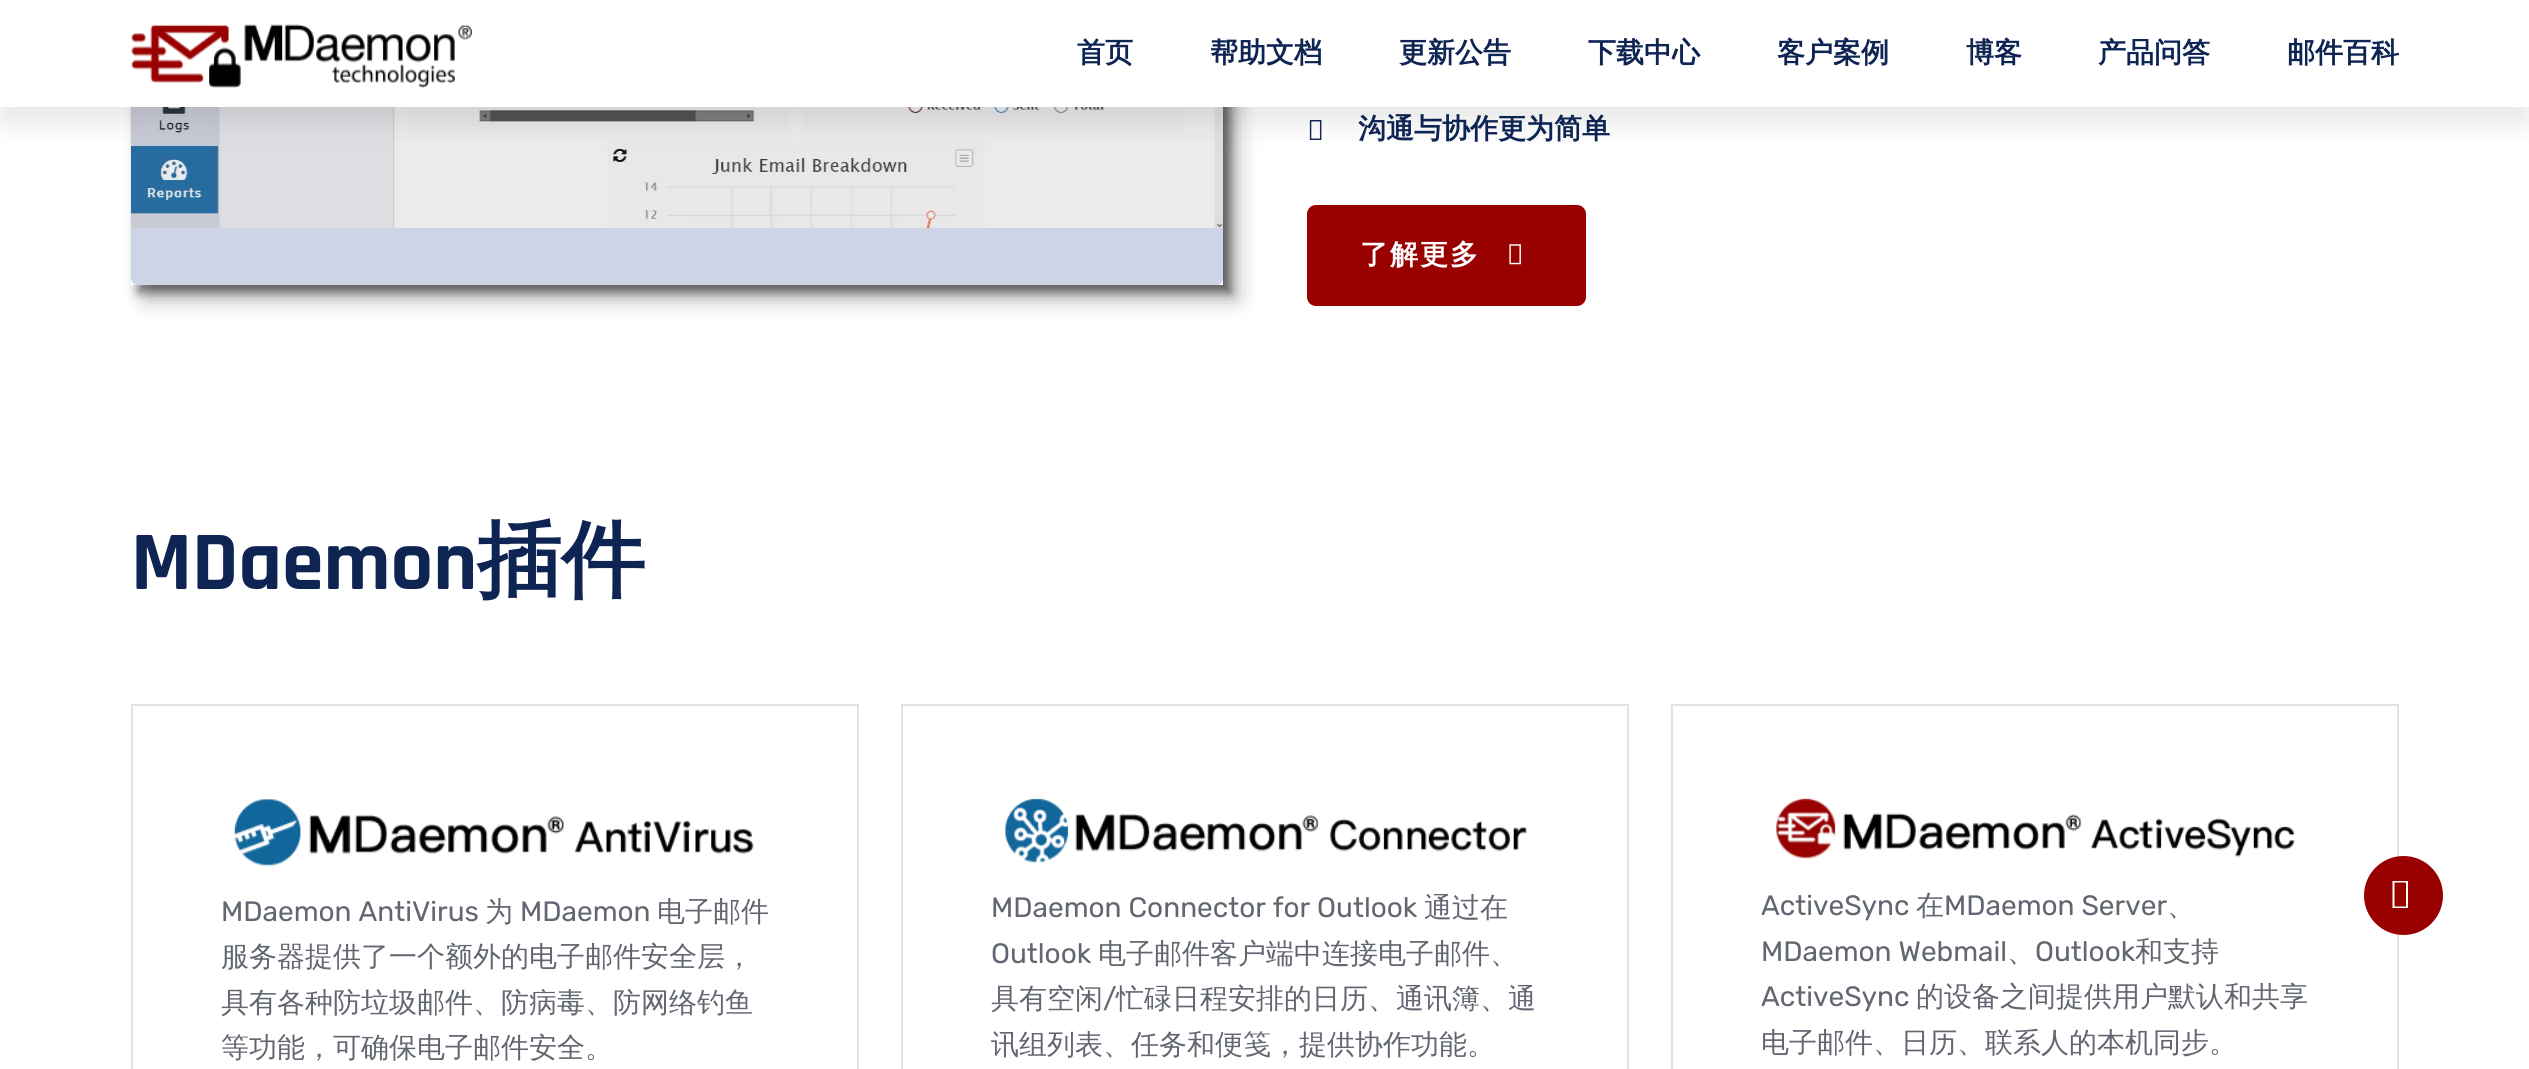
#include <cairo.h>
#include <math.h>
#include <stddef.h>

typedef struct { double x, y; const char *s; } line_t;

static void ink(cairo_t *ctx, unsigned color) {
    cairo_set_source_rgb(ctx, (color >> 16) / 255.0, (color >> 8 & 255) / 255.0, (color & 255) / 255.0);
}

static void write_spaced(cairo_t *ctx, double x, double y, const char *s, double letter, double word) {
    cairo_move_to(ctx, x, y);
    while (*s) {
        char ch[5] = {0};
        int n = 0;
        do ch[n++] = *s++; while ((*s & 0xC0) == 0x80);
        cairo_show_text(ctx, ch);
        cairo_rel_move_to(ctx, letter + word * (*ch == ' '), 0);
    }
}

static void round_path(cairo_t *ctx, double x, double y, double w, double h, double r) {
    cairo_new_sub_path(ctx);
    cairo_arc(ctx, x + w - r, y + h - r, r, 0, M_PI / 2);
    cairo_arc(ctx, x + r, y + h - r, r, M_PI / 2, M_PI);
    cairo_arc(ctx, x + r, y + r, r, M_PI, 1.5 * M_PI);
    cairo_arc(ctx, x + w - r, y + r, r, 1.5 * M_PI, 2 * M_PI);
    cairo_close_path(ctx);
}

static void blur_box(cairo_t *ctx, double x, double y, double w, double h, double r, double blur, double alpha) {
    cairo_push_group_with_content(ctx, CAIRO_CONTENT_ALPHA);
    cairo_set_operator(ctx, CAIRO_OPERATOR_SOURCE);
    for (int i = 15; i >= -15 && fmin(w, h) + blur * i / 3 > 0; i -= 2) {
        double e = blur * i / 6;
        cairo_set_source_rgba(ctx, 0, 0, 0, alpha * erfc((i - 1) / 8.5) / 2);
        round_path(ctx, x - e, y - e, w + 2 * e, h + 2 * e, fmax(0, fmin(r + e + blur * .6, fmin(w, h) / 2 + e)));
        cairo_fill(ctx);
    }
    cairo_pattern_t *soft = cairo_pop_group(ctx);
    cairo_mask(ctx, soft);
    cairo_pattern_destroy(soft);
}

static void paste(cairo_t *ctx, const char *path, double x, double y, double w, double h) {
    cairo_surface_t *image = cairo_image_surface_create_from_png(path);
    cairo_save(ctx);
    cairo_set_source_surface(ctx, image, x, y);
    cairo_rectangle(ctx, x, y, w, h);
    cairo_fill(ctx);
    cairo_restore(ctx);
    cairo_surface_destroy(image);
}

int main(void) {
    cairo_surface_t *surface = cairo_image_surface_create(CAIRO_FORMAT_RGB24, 2529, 1069);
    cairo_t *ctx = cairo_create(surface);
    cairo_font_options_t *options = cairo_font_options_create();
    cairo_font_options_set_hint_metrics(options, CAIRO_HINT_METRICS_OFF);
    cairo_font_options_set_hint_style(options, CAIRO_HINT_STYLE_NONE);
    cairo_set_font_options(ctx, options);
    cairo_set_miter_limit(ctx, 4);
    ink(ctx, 0xFFFFFF);
    cairo_paint(ctx);
    cairo_save(ctx);
    cairo_set_fill_rule(ctx, CAIRO_FILL_RULE_EVEN_ODD);
    cairo_new_path(ctx);
    cairo_move_to(ctx, 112, 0);
    cairo_line_to(ctx, 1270, 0);
    cairo_line_to(ctx, 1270, 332);
    cairo_line_to(ctx, 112, 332);
    cairo_close_path(ctx);
    cairo_move_to(ctx, 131, -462);
    cairo_line_to(ctx, 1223, -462);
    cairo_line_to(ctx, 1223, 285);
    cairo_line_to(ctx, 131, 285);
    cairo_close_path(ctx);
    cairo_clip(ctx);
    ink(ctx, 0x000000);
    blur_box(ctx, 145, -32, 1092, 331, 0, 10.5, 0.3);
    cairo_restore(ctx);
    cairo_save(ctx);
    cairo_set_fill_rule(ctx, CAIRO_FILL_RULE_EVEN_ODD);
    cairo_new_path(ctx);
    cairo_move_to(ctx, 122, 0);
    cairo_line_to(ctx, 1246, 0);
    cairo_line_to(ctx, 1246, 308);
    cairo_line_to(ctx, 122, 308);
    cairo_close_path(ctx);
    cairo_move_to(ctx, 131, -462);
    cairo_line_to(ctx, 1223, -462);
    cairo_line_to(ctx, 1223, 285);
    cairo_line_to(ctx, 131, 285);
    cairo_close_path(ctx);
    cairo_clip(ctx);
    ink(ctx, 0x000000);
    blur_box(ctx, 138, -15, 1092, 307, 0, 5, 0.5);
    cairo_restore(ctx);
    paste(ctx, "media/2.png", 131, 107, 1092, 179);
    paste(ctx, "media/3.png", 1309, 120, 13, 20);
    ink(ctx, 0x191919);
    blur_box(ctx, 0, 18, 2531, 106, 0, 13, 0.1);
    ink(ctx, 0xFFFFFF);
    cairo_rectangle(ctx, 0, 0, 2529, 107);
    cairo_fill(ctx);
    paste(ctx, "media/1.png", 131, 24, 341, 64);
    cairo_select_font_face(ctx, "WenQuanYi Zen Hei", CAIRO_FONT_SLANT_NORMAL, CAIRO_FONT_WEIGHT_BOLD);
    cairo_set_font_size(ctx, 28);
    ink(ctx, 0x0E2453);
    {
        static const line_t items[] = {
            {1077, 62, "首页"},
            {1210, 62, "帮助文档"},
            {1399, 62, "更新公告"},
            {1588, 62, "下载中心"},
            {1777, 62, "客户案例"},
            {1966, 62, "博客"},
            {2098, 62, "产品问答"},
            {2287, 62, "邮件百科"},
            {1358, 138, "沟通与协作更为简单"},
        };
        for (size_t i = 0; i < sizeof items / sizeof *items; i++) {
            cairo_move_to(ctx, items[i].x, items[i].y);
            cairo_show_text(ctx, items[i].s);
        }
    }
    ink(ctx, 0x990000);
    round_path(ctx, 1307, 205, 279, 101, 9);
    cairo_fill(ctx);
    ink(ctx, 0xFFFFFF);
    write_spaced(ctx, 1360, 264, "了解更多", 2, 0);
    paste(ctx, "media/4.png", 1509, 244, 12, 21);
    cairo_select_font_face(ctx, "Rajdhani", CAIRO_FONT_SLANT_NORMAL, CAIRO_FONT_WEIGHT_BOLD);
    cairo_set_font_size(ctx, 84);
    ink(ctx, 0x0E2453);
    cairo_move_to(ctx, 131, 589);
    cairo_show_text(ctx, "MDaemon");
    cairo_select_font_face(ctx, "WenQuanYi Zen Hei", CAIRO_FONT_SLANT_NORMAL, CAIRO_FONT_WEIGHT_BOLD);
    cairo_move_to(ctx, 477, 589);
    cairo_show_text(ctx, "插件");
    cairo_rectangle(ctx, 132, 705, 726, 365);
    ink(ctx, 0xE3E3E3);
    cairo_stroke(ctx);
    paste(ctx, "media/5.png", 234, 799, 520, 68);
    cairo_select_font_face(ctx, "Rubik", CAIRO_FONT_SLANT_NORMAL, CAIRO_FONT_WEIGHT_NORMAL);
    cairo_set_font_size(ctx, 28);
    ink(ctx, 0x616670);
    cairo_move_to(ctx, 221, 921);
    cairo_show_text(ctx, "MDaemon AntiVirus");
    cairo_select_font_face(ctx, "WenQuanYi Zen Hei Medium", CAIRO_FONT_SLANT_NORMAL, CAIRO_FONT_WEIGHT_NORMAL);
    cairo_move_to(ctx, 485, 921);
    cairo_show_text(ctx, "为");
    cairo_select_font_face(ctx, "Rubik", CAIRO_FONT_SLANT_NORMAL, CAIRO_FONT_WEIGHT_NORMAL);
    cairo_move_to(ctx, 520, 921);
    cairo_show_text(ctx, "MDaemon");
    cairo_select_font_face(ctx, "WenQuanYi Zen Hei Medium", CAIRO_FONT_SLANT_NORMAL, CAIRO_FONT_WEIGHT_NORMAL);
    {
        static const line_t items[] = {
            {657, 921, "电子邮件"},
            {221, 966, "服务器提供了一个额外的电子邮件安全层，"},
            {221, 1012, "具有各种防垃圾邮件、防病毒、防网络钓鱼"},
            {221, 1057, "等功能，可确保电子邮件安全。"},
        };
        for (size_t i = 0; i < sizeof items / sizeof *items; i++) {
            cairo_move_to(ctx, items[i].x, items[i].y);
            cairo_show_text(ctx, items[i].s);
        }
    }
    cairo_rectangle(ctx, 902, 705, 726, 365);
    ink(ctx, 0xE3E3E3);
    cairo_stroke(ctx);
    paste(ctx, "media/6.png", 1004, 798, 523, 65);
    cairo_select_font_face(ctx, "Rubik", CAIRO_FONT_SLANT_NORMAL, CAIRO_FONT_WEIGHT_NORMAL);
    ink(ctx, 0x616670);
    cairo_move_to(ctx, 991, 917);
    cairo_show_text(ctx, "MDaemon Connector for Outlook");
    cairo_select_font_face(ctx, "WenQuanYi Zen Hei Medium", CAIRO_FONT_SLANT_NORMAL, CAIRO_FONT_WEIGHT_NORMAL);
    cairo_move_to(ctx, 1424, 917);
    cairo_show_text(ctx, "通过在");
    cairo_select_font_face(ctx, "Rubik", CAIRO_FONT_SLANT_NORMAL, CAIRO_FONT_WEIGHT_NORMAL);
    cairo_move_to(ctx, 991, 963);
    cairo_show_text(ctx, "Outlook");
    cairo_select_font_face(ctx, "WenQuanYi Zen Hei Medium", CAIRO_FONT_SLANT_NORMAL, CAIRO_FONT_WEIGHT_NORMAL);
    cairo_move_to(ctx, 1098, 963);
    cairo_show_text(ctx, "电子邮件客户端中连接电子邮件、");
    cairo_move_to(ctx, 991, 1008);
    cairo_show_text(ctx, "具有空闲");
    cairo_select_font_face(ctx, "Rubik", CAIRO_FONT_SLANT_NORMAL, CAIRO_FONT_WEIGHT_NORMAL);
    cairo_move_to(ctx, 1103, 1008);
    cairo_show_text(ctx, "/");
    cairo_select_font_face(ctx, "WenQuanYi Zen Hei Medium", CAIRO_FONT_SLANT_NORMAL, CAIRO_FONT_WEIGHT_NORMAL);
    cairo_move_to(ctx, 1116, 1008);
    cairo_show_text(ctx, "忙碌日程安排的日历、通讯簿、通");
    cairo_move_to(ctx, 991, 1054);
    cairo_show_text(ctx, "讯组列表、任务和便笺，提供协作功能。");
    cairo_rectangle(ctx, 1672, 705, 726, 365);
    ink(ctx, 0xE3E3E3);
    cairo_stroke(ctx);
    paste(ctx, "media/7.png", 1776, 798, 519, 61);
    cairo_select_font_face(ctx, "Rubik", CAIRO_FONT_SLANT_NORMAL, CAIRO_FONT_WEIGHT_NORMAL);
    ink(ctx, 0x616670);
    cairo_move_to(ctx, 1761, 915);
    cairo_show_text(ctx, "ActiveSync");
    cairo_select_font_face(ctx, "WenQuanYi Zen Hei Medium", CAIRO_FONT_SLANT_NORMAL, CAIRO_FONT_WEIGHT_NORMAL);
    cairo_move_to(ctx, 1916, 915);
    cairo_show_text(ctx, "在");
    cairo_select_font_face(ctx, "Rubik", CAIRO_FONT_SLANT_NORMAL, CAIRO_FONT_WEIGHT_NORMAL);
    cairo_move_to(ctx, 1944, 915);
    cairo_show_text(ctx, "MDaemon Server");
    cairo_select_font_face(ctx, "WenQuanYi Zen Hei Medium", CAIRO_FONT_SLANT_NORMAL, CAIRO_FONT_WEIGHT_NORMAL);
    cairo_move_to(ctx, 2167, 915);
    cairo_show_text(ctx, "、");
    cairo_select_font_face(ctx, "Rubik", CAIRO_FONT_SLANT_NORMAL, CAIRO_FONT_WEIGHT_NORMAL);
    cairo_move_to(ctx, 1761, 961);
    cairo_show_text(ctx, "MDaemon Webmail");
    cairo_select_font_face(ctx, "WenQuanYi Zen Hei Medium", CAIRO_FONT_SLANT_NORMAL, CAIRO_FONT_WEIGHT_NORMAL);
    cairo_move_to(ctx, 2007, 961);
    cairo_show_text(ctx, "、");
    cairo_select_font_face(ctx, "Rubik", CAIRO_FONT_SLANT_NORMAL, CAIRO_FONT_WEIGHT_NORMAL);
    cairo_move_to(ctx, 2035, 961);
    cairo_show_text(ctx, "Outlook");
    cairo_select_font_face(ctx, "WenQuanYi Zen Hei Medium", CAIRO_FONT_SLANT_NORMAL, CAIRO_FONT_WEIGHT_NORMAL);
    cairo_move_to(ctx, 2135, 961);
    cairo_show_text(ctx, "和支持");
    cairo_select_font_face(ctx, "Rubik", CAIRO_FONT_SLANT_NORMAL, CAIRO_FONT_WEIGHT_NORMAL);
    cairo_move_to(ctx, 1761, 1006);
    cairo_show_text(ctx, "ActiveSync");
    cairo_select_font_face(ctx, "WenQuanYi Zen Hei Medium", CAIRO_FONT_SLANT_NORMAL, CAIRO_FONT_WEIGHT_NORMAL);
    cairo_move_to(ctx, 1916, 1006);
    cairo_show_text(ctx, "的设备之间提供用户默认和共享");
    cairo_move_to(ctx, 1761, 1052);
    cairo_show_text(ctx, "电子邮件、日历、联系人的本机同步。");
    ink(ctx, 0x990000);
    cairo_new_path(ctx);
    cairo_arc(ctx, 2403.5, 895.5, 39.5, 0, 2 * M_PI);
    cairo_fill(ctx);
    ink(ctx, 0xFFFFFF);
    cairo_new_path(ctx);
    cairo_move_to(ctx, 2392.5, 908);
    cairo_line_to(ctx, 2392.5, 881);
    cairo_line_to(ctx, 2408, 881);
    cairo_line_to(ctx, 2408, 908);
    cairo_close_path(ctx);
    cairo_move_to(ctx, 2394.5, 906.5);
    cairo_line_to(ctx, 2406, 906.5);
    cairo_line_to(ctx, 2406, 882.5);
    cairo_line_to(ctx, 2394.5, 882.5);
    cairo_close_path(ctx);
    cairo_fill(ctx);
    cairo_surface_write_to_png(surface, "image.png");
    cairo_font_options_destroy(options);
    cairo_destroy(ctx);
    cairo_surface_destroy(surface);
    return 0;
}
